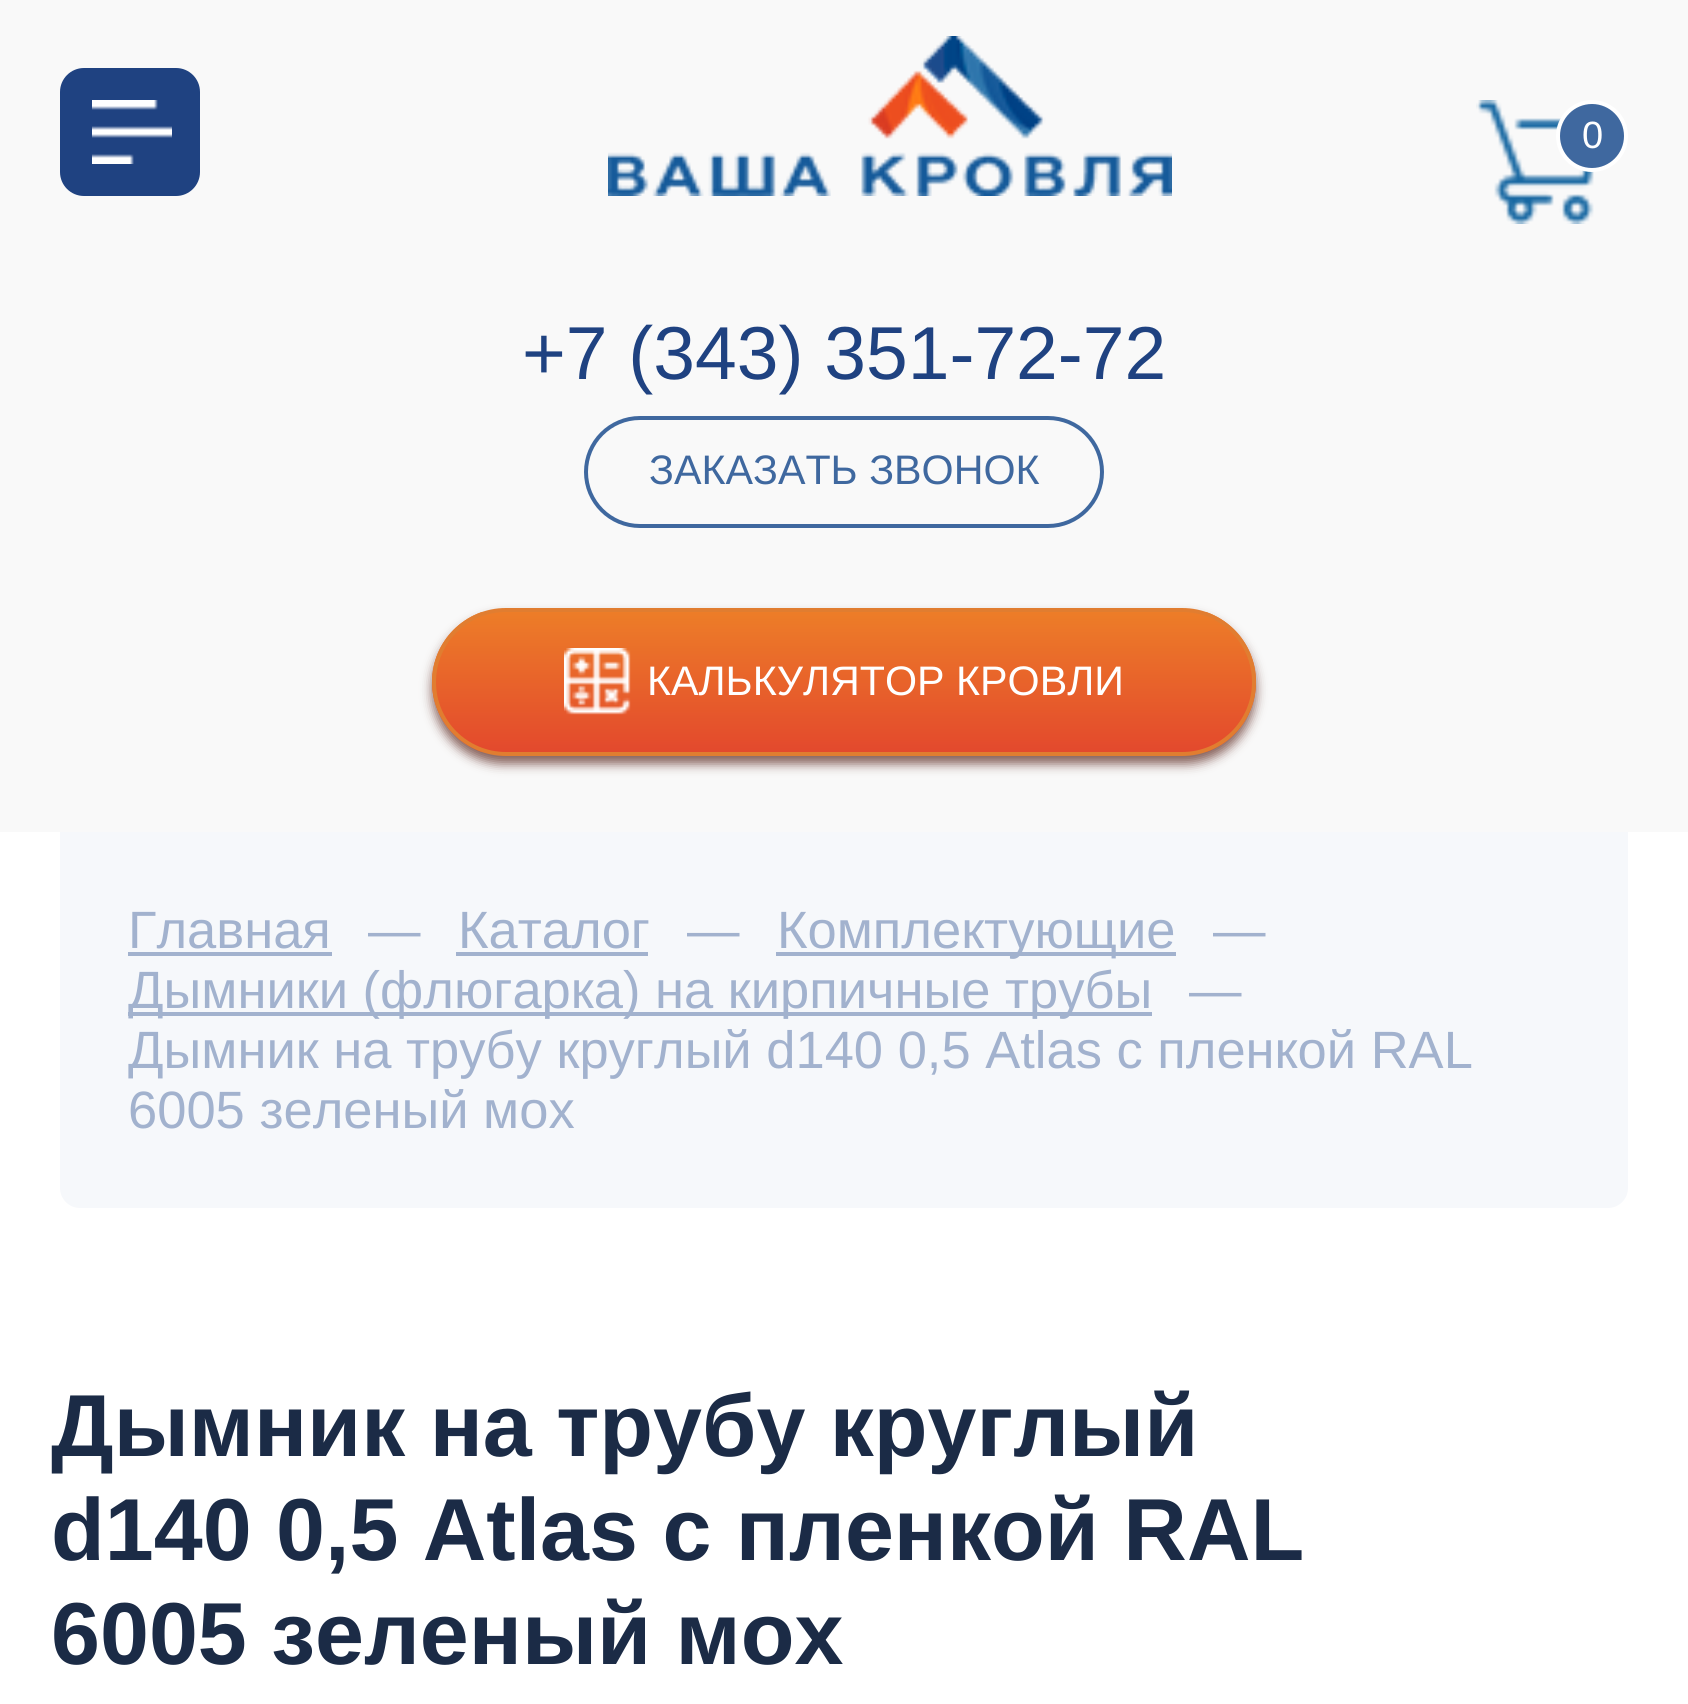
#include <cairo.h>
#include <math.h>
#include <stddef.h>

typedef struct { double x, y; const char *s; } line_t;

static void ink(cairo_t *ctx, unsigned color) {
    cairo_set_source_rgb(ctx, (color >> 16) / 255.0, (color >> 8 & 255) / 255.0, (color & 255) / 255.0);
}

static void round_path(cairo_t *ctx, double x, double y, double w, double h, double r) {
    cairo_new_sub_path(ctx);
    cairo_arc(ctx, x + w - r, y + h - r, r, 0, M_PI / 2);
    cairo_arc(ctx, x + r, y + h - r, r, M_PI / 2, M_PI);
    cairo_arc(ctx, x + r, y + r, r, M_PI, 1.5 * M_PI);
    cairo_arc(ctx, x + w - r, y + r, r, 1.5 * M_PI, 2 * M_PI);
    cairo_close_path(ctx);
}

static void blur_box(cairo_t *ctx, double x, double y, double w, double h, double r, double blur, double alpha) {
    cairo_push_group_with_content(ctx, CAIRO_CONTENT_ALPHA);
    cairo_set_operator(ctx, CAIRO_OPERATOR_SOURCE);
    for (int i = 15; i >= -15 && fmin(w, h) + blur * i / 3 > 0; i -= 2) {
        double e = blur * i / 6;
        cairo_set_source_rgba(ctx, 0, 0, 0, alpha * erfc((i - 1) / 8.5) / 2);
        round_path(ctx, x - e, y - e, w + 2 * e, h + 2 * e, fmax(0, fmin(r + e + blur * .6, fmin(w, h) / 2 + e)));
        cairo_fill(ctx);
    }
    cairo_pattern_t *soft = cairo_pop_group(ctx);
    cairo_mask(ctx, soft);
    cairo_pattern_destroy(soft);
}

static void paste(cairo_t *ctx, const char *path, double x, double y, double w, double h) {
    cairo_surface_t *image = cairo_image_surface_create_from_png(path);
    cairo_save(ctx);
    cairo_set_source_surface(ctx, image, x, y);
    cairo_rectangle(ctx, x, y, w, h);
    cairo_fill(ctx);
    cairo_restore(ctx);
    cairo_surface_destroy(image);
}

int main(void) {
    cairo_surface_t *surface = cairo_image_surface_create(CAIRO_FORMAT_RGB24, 1688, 1704);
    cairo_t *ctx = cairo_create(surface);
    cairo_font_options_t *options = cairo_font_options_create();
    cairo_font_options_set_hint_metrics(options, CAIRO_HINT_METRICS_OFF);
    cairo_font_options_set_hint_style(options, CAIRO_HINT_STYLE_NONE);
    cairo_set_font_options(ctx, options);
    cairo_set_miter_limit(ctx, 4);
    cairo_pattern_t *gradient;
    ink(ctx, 0xFFFFFF);
    cairo_paint(ctx);
    ink(ctx, 0xF9F9F9);
    cairo_rectangle(ctx, 0, 0, 1688, 832);
    cairo_fill(ctx);
    ink(ctx, 0x1F4281);
    round_path(ctx, 60, 68, 140, 128, 24);
    cairo_fill(ctx);
    paste(ctx, "media/1.png", 92, 100, 80, 64);
    paste(ctx, "media/2.png", 608, 36, 564, 160);
    paste(ctx, "media/3.png", 1476, 100, 118, 124);
    ink(ctx, 0x3F689F);
    cairo_arc(ctx, 1592, 136, 34, 0, 2 * M_PI);
    cairo_fill_preserve(ctx);
    ink(ctx, 0xFFFFFF);
    cairo_set_line_width(ctx, 4);
    cairo_stroke(ctx);
    cairo_select_font_face(ctx, "Liberation Sans", CAIRO_FONT_SLANT_NORMAL, CAIRO_FONT_WEIGHT_NORMAL);
    cairo_set_font_size(ctx, 38);
    cairo_move_to(ctx, 1582, 148);
    cairo_show_text(ctx, "0");
    cairo_set_font_size(ctx, 75);
    ink(ctx, 0x1F4281);
    cairo_move_to(ctx, 522, 379);
    cairo_show_text(ctx, "+7 (343) 351-72-72");
    round_path(ctx, 586, 418, 516, 108, 54);
    ink(ctx, 0x3F689F);
    cairo_stroke(ctx);
    cairo_set_font_size(ctx, 41.25);
    cairo_move_to(ctx, 649, 484);
    cairo_show_text(ctx, "ЗАКАЗАТЬ ЗВОНОК");
    ink(ctx, 0x87615B);
    blur_box(ctx, 432, 616, 824, 148, 74, 5.5, 1);
    cairo_save(ctx);
    round_path(ctx, 432, 608, 824, 148, 74);
    cairo_clip(ctx);
    gradient = cairo_pattern_create_linear(844, 752, 844, 612);
    cairo_pattern_add_color_stop_rgba(gradient, 0, 0.89, 0.286, 0.176, 1);
    cairo_pattern_add_color_stop_rgba(gradient, 1, 0.929, 0.49, 0.157, 1);
    cairo_set_source(ctx, gradient);
    cairo_pattern_destroy(gradient);
    cairo_rectangle(ctx, 432, 612, 824, 140);
    cairo_fill(ctx);
    cairo_restore(ctx);
    round_path(ctx, 434, 610, 820, 144, 72);
    ink(ctx, 0xE17D30);
    cairo_stroke(ctx);
    paste(ctx, "media/4.png", 564, 648, 67, 67);
    ink(ctx, 0xFFFFFF);
    cairo_move_to(ctx, 647, 695);
    cairo_show_text(ctx, "КАЛЬКУЛЯТОР КРОВЛИ");
    ink(ctx, 0xF6F8FB);
    cairo_new_path(ctx);
    cairo_move_to(ctx, 60, 832);
    cairo_line_to(ctx, 1628, 832);
    cairo_line_to(ctx, 1628, 1188);
    cairo_curve_to(ctx, 1628, 1199, 1619, 1208, 1608, 1208);
    cairo_line_to(ctx, 80, 1208);
    cairo_curve_to(ctx, 69, 1208, 60, 1199, 60, 1188);
    cairo_close_path(ctx);
    cairo_fill(ctx);
    cairo_set_font_size(ctx, 52.5);
    ink(ctx, 0xA2B2CE);
    cairo_move_to(ctx, 128, 948);
    cairo_show_text(ctx, "Главная");
    cairo_rectangle(ctx, 128, 952, 204, 4);
    cairo_fill(ctx);
    cairo_move_to(ctx, 368, 948);
    cairo_show_text(ctx, "—");
    cairo_move_to(ctx, 458, 948);
    cairo_show_text(ctx, "Каталог");
    cairo_rectangle(ctx, 456, 952, 192, 4);
    cairo_fill(ctx);
    cairo_move_to(ctx, 687, 948);
    cairo_show_text(ctx, "—");
    cairo_rectangle(ctx, 776, 952, 400, 4);
    cairo_fill(ctx);
    cairo_move_to(ctx, 777, 948);
    cairo_show_text(ctx, "Комплектующие");
    cairo_move_to(ctx, 1213, 948);
    cairo_show_text(ctx, "—");
    cairo_rectangle(ctx, 128, 1012, 1024, 4);
    cairo_fill(ctx);
    {
        static const line_t items[] = {
            {128, 1008, "Дымники (флюгарка) на кирпичные трубы"},
            {1189, 1008, "—"},
            {128, 1068, "Дымник на трубу круглый d140 0,5 Atlas с пленкой RAL"},
            {128, 1128, "6005 зеленый мох"},
        };
        for (size_t i = 0; i < sizeof items / sizeof *items; i++) {
            cairo_move_to(ctx, items[i].x, items[i].y);
            cairo_show_text(ctx, items[i].s);
        }
    }
    cairo_select_font_face(ctx, "Liberation Sans", CAIRO_FONT_SLANT_NORMAL, CAIRO_FONT_WEIGHT_BOLD);
    cairo_set_font_size(ctx, 88);
    ink(ctx, 0x1B2B46);
    {
        static const line_t items[] = {
            {51, 1456, "Дымник на трубу круглый"},
            {51, 1560, "d140 0,5 Atlas с пленкой RAL"},
            {51, 1664, "6005 зеленый мох"},
        };
        for (size_t i = 0; i < sizeof items / sizeof *items; i++) {
            cairo_move_to(ctx, items[i].x, items[i].y);
            cairo_show_text(ctx, items[i].s);
        }
    }
    cairo_surface_write_to_png(surface, "image.png");
    cairo_font_options_destroy(options);
    cairo_destroy(ctx);
    cairo_surface_destroy(surface);
    return 0;
}
